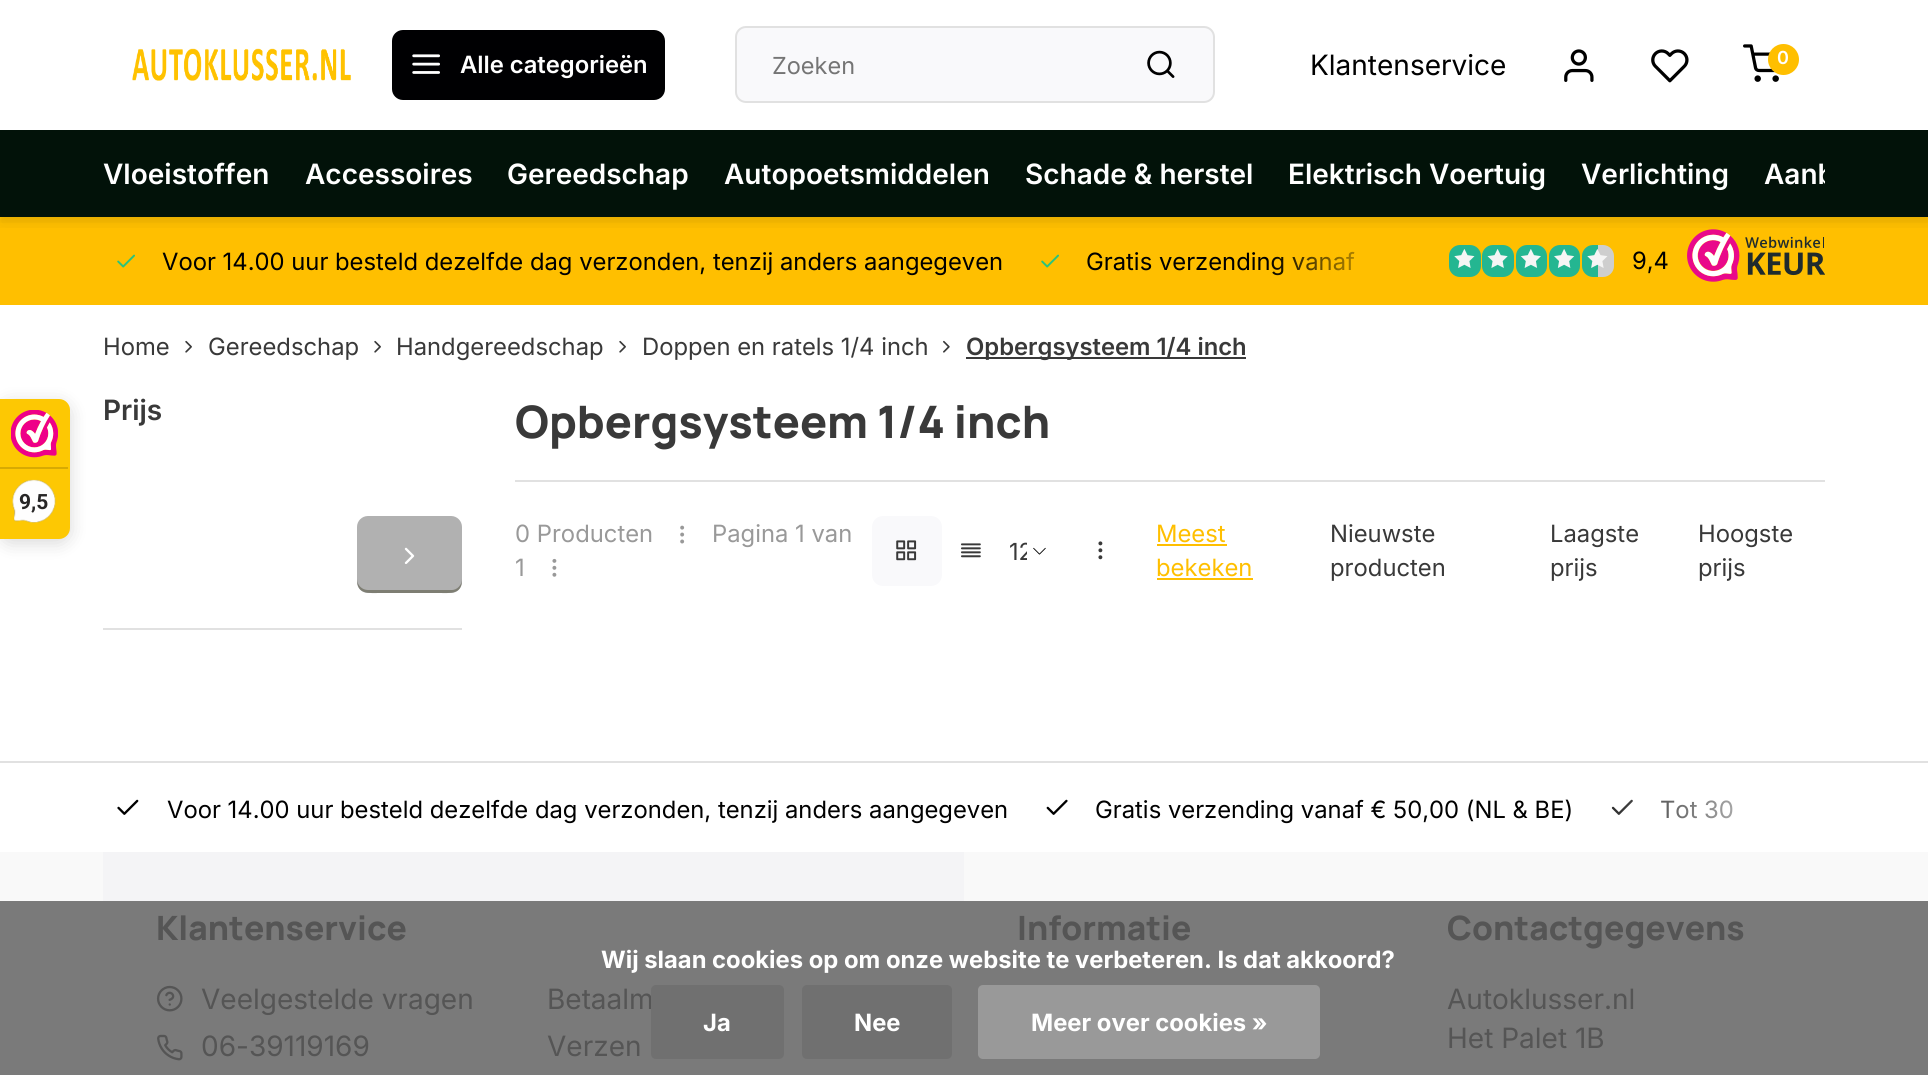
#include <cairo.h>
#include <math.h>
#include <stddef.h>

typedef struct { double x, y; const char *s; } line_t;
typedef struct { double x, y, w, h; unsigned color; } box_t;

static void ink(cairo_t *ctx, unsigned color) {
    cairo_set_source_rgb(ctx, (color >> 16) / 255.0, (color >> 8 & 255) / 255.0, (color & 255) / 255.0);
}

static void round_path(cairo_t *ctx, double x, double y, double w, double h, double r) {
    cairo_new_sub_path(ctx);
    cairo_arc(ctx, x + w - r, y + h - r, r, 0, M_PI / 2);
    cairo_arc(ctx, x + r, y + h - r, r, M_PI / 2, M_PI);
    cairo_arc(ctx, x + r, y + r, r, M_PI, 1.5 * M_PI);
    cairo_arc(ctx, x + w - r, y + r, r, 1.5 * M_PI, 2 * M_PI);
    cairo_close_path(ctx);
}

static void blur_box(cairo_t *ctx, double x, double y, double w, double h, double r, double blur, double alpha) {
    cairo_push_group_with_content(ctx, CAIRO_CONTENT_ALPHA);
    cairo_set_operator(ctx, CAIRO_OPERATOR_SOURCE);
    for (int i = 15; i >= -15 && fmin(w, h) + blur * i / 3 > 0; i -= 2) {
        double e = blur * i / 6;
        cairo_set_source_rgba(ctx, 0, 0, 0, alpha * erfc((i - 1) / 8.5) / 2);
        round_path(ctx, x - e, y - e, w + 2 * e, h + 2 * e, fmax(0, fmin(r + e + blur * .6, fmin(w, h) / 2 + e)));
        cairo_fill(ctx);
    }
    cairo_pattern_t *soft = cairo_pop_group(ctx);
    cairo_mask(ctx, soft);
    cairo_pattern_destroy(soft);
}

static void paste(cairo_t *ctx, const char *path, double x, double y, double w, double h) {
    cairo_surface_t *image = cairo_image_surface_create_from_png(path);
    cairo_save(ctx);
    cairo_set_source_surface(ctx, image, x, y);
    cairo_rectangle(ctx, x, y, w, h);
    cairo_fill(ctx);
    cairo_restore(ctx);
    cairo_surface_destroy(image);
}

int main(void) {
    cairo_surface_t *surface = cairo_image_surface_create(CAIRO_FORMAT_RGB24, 1928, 1075);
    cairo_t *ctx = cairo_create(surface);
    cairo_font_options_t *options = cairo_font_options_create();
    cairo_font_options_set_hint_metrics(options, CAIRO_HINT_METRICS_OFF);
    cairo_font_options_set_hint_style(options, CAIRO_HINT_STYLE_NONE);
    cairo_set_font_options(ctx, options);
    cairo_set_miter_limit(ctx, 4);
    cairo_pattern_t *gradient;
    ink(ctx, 0xFFFFFF);
    cairo_paint(ctx);
    ink(ctx, 0x000000);
    blur_box(ctx, 0, 403, 70, 140, 11, 9, 0.15);
    ink(ctx, 0xFDC803);
    cairo_new_path(ctx);
    cairo_move_to(ctx, 0, 399);
    cairo_line_to(ctx, 59, 399);
    cairo_curve_to(ctx, 65, 399, 70, 404, 70, 410);
    cairo_line_to(ctx, 70, 528);
    cairo_curve_to(ctx, 70, 534, 65, 539, 59, 539);
    cairo_line_to(ctx, 0, 539);
    cairo_close_path(ctx);
    cairo_fill(ctx);
    paste(ctx, "media/1.png", 11, 410, 47, 48);
    ink(ctx, 0xD7AA03);
    cairo_rectangle(ctx, 0, 467, 68, 2);
    cairo_fill(ctx);
    paste(ctx, "media/2.png", 12, 479, 44, 44);
    cairo_select_font_face(ctx, "Roboto", CAIRO_FONT_SLANT_NORMAL, CAIRO_FONT_WEIGHT_BOLD);
    cairo_set_font_size(ctx, 21);
    ink(ctx, 0x272626);
    cairo_move_to(ctx, 19, 509);
    cairo_show_text(ctx, "9,5");
    ink(ctx, 0xFFBF00);
    cairo_rectangle(ctx, 0, 217, 1928, 88);
    cairo_fill(ctx);
    cairo_select_font_face(ctx, "Inter", CAIRO_FONT_SLANT_NORMAL, CAIRO_FONT_WEIGHT_NORMAL);
    cairo_set_font_size(ctx, 23.8);
    ink(ctx, 0x000000);
    cairo_move_to(ctx, 1086, 270);
    cairo_show_text(ctx, "Gratis verzending vanaf");
    gradient = cairo_pattern_create_linear(1267, 261, 1397, 261);
    cairo_pattern_add_color_stop_rgba(gradient, 0, 1, 0.749, 0, 0);
    cairo_pattern_add_color_stop_rgba(gradient, 1, 1, 0.749, 0, 1);
    cairo_set_source(ctx, gradient);
    cairo_pattern_destroy(gradient);
    cairo_rectangle(ctx, 1272, 251, 83, 24);
    cairo_fill(ctx);
    ink(ctx, 0x24B691);
    round_path(ctx, 1449, 245, 32, 32, 11);
    cairo_fill(ctx);
    paste(ctx, "media/10.png", 1454, 249, 21, 19);
    round_path(ctx, 1482, 245, 32, 32, 11);
    cairo_fill(ctx);
    paste(ctx, "media/11.png", 1487, 249, 21, 19);
    round_path(ctx, 1516, 245, 31, 32, 11);
    cairo_fill(ctx);
    paste(ctx, "media/12.png", 1520, 249, 21, 19);
    round_path(ctx, 1549, 245, 31, 32, 11);
    cairo_fill(ctx);
    paste(ctx, "media/13.png", 1554, 249, 21, 19);
    cairo_new_path(ctx);
    cairo_move_to(ctx, 1593, 245);
    cairo_line_to(ctx, 1598, 245);
    cairo_line_to(ctx, 1598, 277);
    cairo_line_to(ctx, 1593, 277);
    cairo_curve_to(ctx, 1587, 277, 1582, 272, 1582, 266);
    cairo_line_to(ctx, 1582, 256);
    cairo_curve_to(ctx, 1582, 250, 1587, 245, 1593, 245);
    cairo_close_path(ctx);
    cairo_fill(ctx);
    ink(ctx, 0xCECECE);
    cairo_new_path(ctx);
    cairo_move_to(ctx, 1598, 245);
    cairo_line_to(ctx, 1603, 245);
    cairo_curve_to(ctx, 1609, 245, 1614, 250, 1614, 256);
    cairo_line_to(ctx, 1614, 266);
    cairo_curve_to(ctx, 1614, 272, 1609, 277, 1603, 277);
    cairo_line_to(ctx, 1598, 277);
    cairo_close_path(ctx);
    cairo_fill(ctx);
    paste(ctx, "media/14.png", 1587, 249, 21, 19);
    paste(ctx, "media/15.png", 1687, 229, 138, 53);
    cairo_save(ctx);
    cairo_rectangle(ctx, 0, 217, 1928, 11);
    cairo_clip(ctx);
    ink(ctx, 0x000000);
    blur_box(ctx, 0, 9, 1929, 217, 0, 9, 0.05);
    cairo_restore(ctx);
    cairo_save(ctx);
    cairo_rectangle(ctx, 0, 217, 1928, 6);
    cairo_clip(ctx);
    ink(ctx, 0x000000);
    blur_box(ctx, 0, 5, 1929, 217, 0, 3.5, 0.05);
    cairo_restore(ctx);
    paste(ctx, "media/3.png", 132, 48, 219, 33);
    ink(ctx, 0x000002);
    round_path(ctx, 392, 30, 273, 70, 11);
    cairo_fill(ctx);
    paste(ctx, "media/4.png", 412, 54, 28, 20);
    cairo_select_font_face(ctx, "Inter SemiBold", CAIRO_FONT_SLANT_NORMAL, CAIRO_FONT_WEIGHT_NORMAL);
    ink(ctx, 0xFFFFFF);
    cairo_move_to(ctx, 460, 73);
    cairo_show_text(ctx, "Alle categorieën");
    ink(ctx, 0xF9F9FB);
    round_path(ctx, 736, 27, 478, 75, 10);
    cairo_fill_preserve(ctx);
    ink(ctx, 0xE1E1E1);
    cairo_stroke(ctx);
    cairo_select_font_face(ctx, "Inter", CAIRO_FONT_SLANT_NORMAL, CAIRO_FONT_WEIGHT_NORMAL);
    cairo_set_font_size(ctx, 23.5);
    ink(ctx, 0x757575);
    cairo_move_to(ctx, 772, 74);
    cairo_show_text(ctx, "Zoeken");
    paste(ctx, "media/5.png", 1147, 50, 28, 28);
    cairo_set_font_size(ctx, 28);
    ink(ctx, 0x000000);
    cairo_move_to(ctx, 1310, 75);
    cairo_show_text(ctx, "Klantenservice");
    paste(ctx, "media/6.png", 1564, 49, 30, 33);
    paste(ctx, "media/7.png", 1651, 49, 38, 34);
    paste(ctx, "media/8.png", 1743, 44, 36, 38);
    ink(ctx, 0xFFBF00);
    cairo_arc(ctx, 1783.5, 59.5, 15.5, 0, 2 * M_PI);
    cairo_fill(ctx);
    cairo_select_font_face(ctx, "Inter SemiBold", CAIRO_FONT_SLANT_NORMAL, CAIRO_FONT_WEIGHT_NORMAL);
    cairo_set_font_size(ctx, 18);
    ink(ctx, 0xFFFFFF);
    cairo_move_to(ctx, 1777, 64);
    cairo_show_text(ctx, "0");
    ink(ctx, 0x021209);
    cairo_rectangle(ctx, 0, 130, 1928, 87);
    cairo_fill(ctx);
    cairo_set_font_size(ctx, 28);
    ink(ctx, 0xFFFFFF);
    {
        static const line_t items[] = {
            {103, 184, "Vloeistoffen"},
            {305, 184, "Accessoires"},
            {507, 184, "Gereedschap"},
            {724, 184, "Autopoetsmiddelen"},
            {1025, 184, "Schade & herstel"},
            {1288, 184, "Elektrisch Voertuig"},
            {1581, 184, "Verlichting"},
        };
        for (size_t i = 0; i < sizeof items / sizeof *items; i++) {
            cairo_move_to(ctx, items[i].x, items[i].y);
            cairo_show_text(ctx, items[i].s);
        }
    }
    cairo_save(ctx);
    cairo_rectangle(ctx, 103, 130, 1722, 87);
    cairo_clip(ctx);
    cairo_move_to(ctx, 1764, 184);
    cairo_show_text(ctx, "Aanb");
    cairo_restore(ctx);
    paste(ctx, "media/9.png", 117, 254, 18, 14);
    cairo_select_font_face(ctx, "Inter", CAIRO_FONT_SLANT_NORMAL, CAIRO_FONT_WEIGHT_NORMAL);
    cairo_set_font_size(ctx, 23.8);
    ink(ctx, 0x000000);
    cairo_move_to(ctx, 162, 270);
    cairo_show_text(ctx, "Voor 14.00 uur besteld dezelfde dag verzonden, tenzij anders aangegeven");
    paste(ctx, "media/9.png", 1041, 254, 18, 14);
    cairo_move_to(ctx, 1632, 269);
    cairo_show_text(ctx, "9,4");
    ink(ctx, 0x393939);
    cairo_move_to(ctx, 103, 355);
    cairo_show_text(ctx, "Home");
    paste(ctx, "media/16.png", 185, 340, 7, 13);
    cairo_move_to(ctx, 208, 355);
    cairo_show_text(ctx, "Gereedschap");
    paste(ctx, "media/16.png", 374, 340, 7, 13);
    cairo_move_to(ctx, 396, 355);
    cairo_show_text(ctx, "Handgereedschap");
    paste(ctx, "media/16.png", 619, 340, 7, 13);
    cairo_move_to(ctx, 642, 355);
    cairo_show_text(ctx, "Doppen en ratels 1/4 inch");
    paste(ctx, "media/17.png", 943, 340, 7, 13);
    cairo_rectangle(ctx, 966, 357, 280, 2);
    cairo_fill(ctx);
    cairo_select_font_face(ctx, "Inter SemiBold", CAIRO_FONT_SLANT_NORMAL, CAIRO_FONT_WEIGHT_NORMAL);
    cairo_move_to(ctx, 966, 355);
    cairo_show_text(ctx, "Opbergsysteem 1/4 inch");
    ink(ctx, 0xE1E1E1);
    cairo_rectangle(ctx, 103, 628, 359, 2);
    cairo_fill(ctx);
    cairo_set_font_size(ctx, 28);
    ink(ctx, 0x393939);
    cairo_move_to(ctx, 103, 420);
    cairo_show_text(ctx, "Prijs");
    ink(ctx, 0xB1B1B1);
    round_path(ctx, 357, 516, 105, 77, 11);
    cairo_fill(ctx);
    ink(ctx, 0x7E7E73);
    cairo_new_path(ctx);
    cairo_move_to(ctx, 357, 579);
    cairo_curve_to(ctx, 357, 595, 368, 593, 382, 593);
    cairo_line_to(ctx, 437, 593);
    cairo_curve_to(ctx, 451, 593, 462, 595, 462, 579);
    cairo_curve_to(ctx, 462, 585, 457, 590, 452, 590);
    cairo_line_to(ctx, 368, 590);
    cairo_curve_to(ctx, 362, 590, 357, 585, 357, 579);
    cairo_close_path(ctx);
    cairo_fill(ctx);
    paste(ctx, "media/18.png", 404, 547, 11, 17);
    cairo_select_font_face(ctx, "Manrope ExtraLight", CAIRO_FONT_SLANT_NORMAL, CAIRO_FONT_WEIGHT_NORMAL);
    cairo_set_font_size(ctx, 44.75);
    ink(ctx, 0x393939);
    cairo_move_to(ctx, 515, 438);
    cairo_show_text(ctx, "Opbergsysteem 1/4 inch");
    ink(ctx, 0xE1E1E1);
    cairo_rectangle(ctx, 515, 480, 1310, 2);
    cairo_fill(ctx);
    cairo_select_font_face(ctx, "Inter", CAIRO_FONT_SLANT_NORMAL, CAIRO_FONT_WEIGHT_NORMAL);
    cairo_set_font_size(ctx, 23.8);
    ink(ctx, 0x999999);
    cairo_move_to(ctx, 515, 542);
    cairo_show_text(ctx, "0 Producten");
    paste(ctx, "media/19.png", 680, 525, 5, 19);
    cairo_move_to(ctx, 712, 542);
    cairo_show_text(ctx, "Pagina 1 van");
    cairo_move_to(ctx, 515, 576);
    cairo_show_text(ctx, "1");
    paste(ctx, "media/20.png", 552, 558, 5, 19);
    ink(ctx, 0xF9F9FB);
    round_path(ctx, 872, 516, 70, 70, 11);
    cairo_fill(ctx);
    paste(ctx, "media/21.png", 896, 540, 21, 21);
    paste(ctx, "media/22.png", 961, 543, 20, 15);
    paste(ctx, "media/23.png", 1033, 547, 13, 8);
    cairo_save(ctx);
    cairo_rectangle(ctx, 1008, 537, 19, 28);
    cairo_clip(ctx);
    cairo_set_font_size(ctx, 23.5);
    ink(ctx, 0x393939);
    cairo_move_to(ctx, 1009, 560);
    cairo_show_text(ctx, "12");
    cairo_restore(ctx);
    paste(ctx, "media/24.png", 1098, 541, 5, 19);
    ink(ctx, 0xFFBF00);
    cairo_move_to(ctx, 1156, 542);
    cairo_show_text(ctx, "Meest");
    cairo_rectangle(ctx, 1157, 544, 70, 2);
    cairo_fill(ctx);
    cairo_move_to(ctx, 1156, 576);
    cairo_show_text(ctx, "bekeken");
    cairo_rectangle(ctx, 1157, 578, 96, 2);
    cairo_fill(ctx);
    ink(ctx, 0x393939);
    {
        static const line_t items[] = {
            {1330, 542, "Nieuwste"},
            {1330, 576, "producten"},
            {1550, 542, "Laagste"},
            {1550, 576, "prijs"},
            {1698, 542, "Hoogste"},
            {1698, 576, "prijs"},
        };
        for (size_t i = 0; i < sizeof items / sizeof *items; i++) {
            cairo_move_to(ctx, items[i].x, items[i].y);
            cairo_show_text(ctx, items[i].s);
        }
    }
    ink(ctx, 0xE1E1E1);
    cairo_rectangle(ctx, 0, 761, 1928, 2);
    cairo_fill(ctx);
    paste(ctx, "media/25.png", 117, 799, 22, 16);
    ink(ctx, 0x000000);
    cairo_move_to(ctx, 167, 818);
    cairo_show_text(ctx, "Voor 14.00 uur besteld dezelfde dag verzonden, tenzij anders aangegeven");
    paste(ctx, "media/26.png", 1046, 799, 22, 16);
    cairo_move_to(ctx, 1095, 818);
    cairo_show_text(ctx, "Gratis verzending vanaf € 50,00 (NL & BE)");
    paste(ctx, "media/27.png", 1611, 799, 22, 16);
    cairo_move_to(ctx, 1660, 818);
    cairo_show_text(ctx, "Tot 30");
    gradient = cairo_pattern_create_linear(1566, 808, 1825, 808);
    cairo_pattern_add_color_stop_rgba(gradient, 0, 1, 1, 1, 0);
    cairo_pattern_add_color_stop_rgba(gradient, 1, 1, 1, 1, 1);
    cairo_set_source(ctx, gradient);
    cairo_pattern_destroy(gradient);
    cairo_rectangle(ctx, 1611, 799, 122, 20);
    cairo_fill(ctx);
    {
        static const box_t items[] = {
            {0, 852, 1928, 49, 0xF9F9F9},
            {0, 901, 1928, 174, 0x7A7A7A},
            {103, 852, 861, 49, 0xF4F4F6},
        };
        for (size_t i = 0; i < sizeof items / sizeof *items; i++) {
            ink(ctx, items[i].color);
            cairo_rectangle(ctx, items[i].x, items[i].y, items[i].w, items[i].h);
            cairo_fill(ctx);
        }
    }
    cairo_select_font_face(ctx, "Manrope ExtraLight", CAIRO_FONT_SLANT_NORMAL, CAIRO_FONT_WEIGHT_NORMAL);
    cairo_set_font_size(ctx, 33.5);
    ink(ctx, 0x555555);
    cairo_move_to(ctx, 156, 940);
    cairo_show_text(ctx, "Klantenservice");
    paste(ctx, "media/28.png", 156, 985, 27, 27);
    cairo_select_font_face(ctx, "Inter", CAIRO_FONT_SLANT_NORMAL, CAIRO_FONT_WEIGHT_NORMAL);
    cairo_set_font_size(ctx, 28);
    cairo_move_to(ctx, 201, 1009);
    cairo_show_text(ctx, "Veelgestelde vragen");
    paste(ctx, "media/29.png", 157, 1034, 26, 27);
    {
        static const line_t items[] = {
            {201, 1056, "06-39119169"},
            {547, 1009, "Betaalm"},
            {547, 1056, "Verzen"},
        };
        for (size_t i = 0; i < sizeof items / sizeof *items; i++) {
            cairo_move_to(ctx, items[i].x, items[i].y);
            cairo_show_text(ctx, items[i].s);
        }
    }
    cairo_select_font_face(ctx, "Manrope ExtraLight", CAIRO_FONT_SLANT_NORMAL, CAIRO_FONT_WEIGHT_NORMAL);
    cairo_set_font_size(ctx, 33.5);
    cairo_move_to(ctx, 1017, 940);
    cairo_show_text(ctx, "Informatie");
    cairo_move_to(ctx, 1447, 940);
    cairo_show_text(ctx, "Contactgegevens");
    cairo_select_font_face(ctx, "Inter", CAIRO_FONT_SLANT_NORMAL, CAIRO_FONT_WEIGHT_NORMAL);
    cairo_set_font_size(ctx, 28);
    cairo_move_to(ctx, 1447, 1009);
    cairo_show_text(ctx, "Autoklusser.nl");
    cairo_move_to(ctx, 1447, 1048);
    cairo_show_text(ctx, "Het Palet 1B");
    cairo_select_font_face(ctx, "Inter", CAIRO_FONT_SLANT_NORMAL, CAIRO_FONT_WEIGHT_BOLD);
    cairo_set_font_size(ctx, 23.8);
    ink(ctx, 0xFFFFFF);
    cairo_move_to(ctx, 601, 968);
    cairo_show_text(ctx, "Wij slaan cookies op om onze website te verbeteren. Is dat akkoord?");
    ink(ctx, 0x707070);
    round_path(ctx, 651, 985, 133, 74, 5);
    cairo_fill(ctx);
    ink(ctx, 0xFFFFFF);
    cairo_move_to(ctx, 703, 1031);
    cairo_show_text(ctx, "Ja");
    ink(ctx, 0x707070);
    round_path(ctx, 802, 985, 150, 74, 5);
    cairo_fill(ctx);
    ink(ctx, 0xFFFFFF);
    cairo_move_to(ctx, 854, 1031);
    cairo_show_text(ctx, "Nee");
    ink(ctx, 0x999999);
    round_path(ctx, 978, 985, 342, 74, 5);
    cairo_fill(ctx);
    ink(ctx, 0xFFFFFF);
    cairo_move_to(ctx, 1031, 1031);
    cairo_show_text(ctx, "Meer over cookies »");
    cairo_surface_write_to_png(surface, "image.png");
    cairo_font_options_destroy(options);
    cairo_destroy(ctx);
    cairo_surface_destroy(surface);
    return 0;
}
